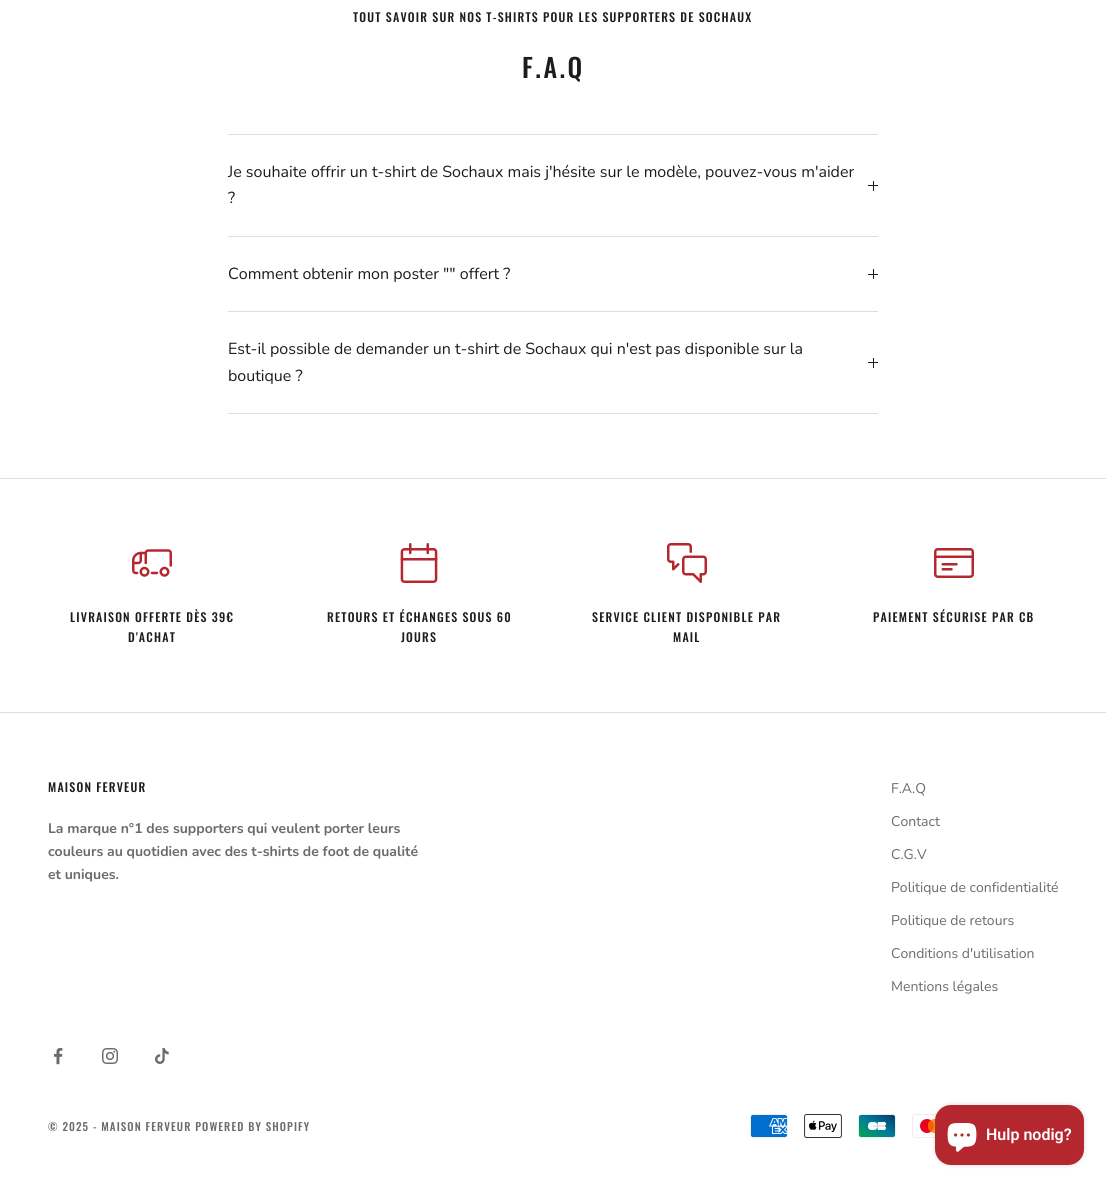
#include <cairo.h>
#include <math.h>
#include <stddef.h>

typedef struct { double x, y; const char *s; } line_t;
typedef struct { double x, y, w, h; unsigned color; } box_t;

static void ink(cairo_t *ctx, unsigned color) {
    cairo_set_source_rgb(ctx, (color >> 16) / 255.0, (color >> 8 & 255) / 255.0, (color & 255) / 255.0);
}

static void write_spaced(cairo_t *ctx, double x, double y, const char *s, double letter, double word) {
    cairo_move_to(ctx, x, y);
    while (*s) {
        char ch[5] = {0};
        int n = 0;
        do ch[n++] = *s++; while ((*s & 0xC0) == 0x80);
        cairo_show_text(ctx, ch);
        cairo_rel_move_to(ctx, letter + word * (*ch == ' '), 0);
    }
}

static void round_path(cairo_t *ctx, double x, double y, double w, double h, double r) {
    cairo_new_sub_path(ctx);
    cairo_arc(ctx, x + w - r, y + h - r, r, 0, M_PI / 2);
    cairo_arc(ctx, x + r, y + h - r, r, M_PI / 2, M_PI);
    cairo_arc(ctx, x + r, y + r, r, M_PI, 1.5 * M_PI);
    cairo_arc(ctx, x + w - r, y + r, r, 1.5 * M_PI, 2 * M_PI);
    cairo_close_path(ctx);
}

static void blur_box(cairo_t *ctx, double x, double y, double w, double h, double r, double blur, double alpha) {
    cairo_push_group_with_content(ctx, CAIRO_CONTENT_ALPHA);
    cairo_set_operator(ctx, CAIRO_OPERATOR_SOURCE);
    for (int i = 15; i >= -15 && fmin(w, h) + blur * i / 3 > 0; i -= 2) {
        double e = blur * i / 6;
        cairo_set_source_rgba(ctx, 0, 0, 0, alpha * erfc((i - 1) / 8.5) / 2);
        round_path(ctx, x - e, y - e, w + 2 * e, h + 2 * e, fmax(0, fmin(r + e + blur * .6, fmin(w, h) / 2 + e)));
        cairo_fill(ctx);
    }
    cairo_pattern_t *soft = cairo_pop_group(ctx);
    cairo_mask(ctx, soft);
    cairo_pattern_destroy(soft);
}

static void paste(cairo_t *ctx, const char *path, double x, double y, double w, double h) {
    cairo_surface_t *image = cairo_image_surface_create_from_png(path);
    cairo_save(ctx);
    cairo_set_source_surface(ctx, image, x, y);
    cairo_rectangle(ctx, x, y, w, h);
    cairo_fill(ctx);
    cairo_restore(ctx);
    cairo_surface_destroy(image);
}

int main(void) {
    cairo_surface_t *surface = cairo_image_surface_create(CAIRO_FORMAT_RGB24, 1106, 1186);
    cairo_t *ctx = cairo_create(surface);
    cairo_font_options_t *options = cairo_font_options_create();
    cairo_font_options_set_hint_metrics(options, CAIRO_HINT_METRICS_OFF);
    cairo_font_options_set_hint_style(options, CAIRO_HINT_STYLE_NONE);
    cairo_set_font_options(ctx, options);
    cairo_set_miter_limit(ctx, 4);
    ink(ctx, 0xFFFFFF);
    cairo_paint(ctx);
    cairo_select_font_face(ctx, "Oswald Medium", CAIRO_FONT_SLANT_NORMAL, CAIRO_FONT_WEIGHT_NORMAL);
    cairo_set_font_size(ctx, 12);
    ink(ctx, 0x1C1C1C);
    write_spaced(ctx, 353, 22, "TOUT SAVOIR SUR NOS T-SHIRTS POUR LES SUPPORTERS DE SOCHAUX", 1.2, 0);
    cairo_set_font_size(ctx, 26);
    write_spaced(ctx, 522, 78, "F.A.Q", 2.5, 0);
    ink(ctx, 0xDDDDDD);
    cairo_rectangle(ctx, 228, 134, 650, 1);
    cairo_fill(ctx);
    cairo_rectangle(ctx, 228, 236, 650, 1);
    cairo_fill(ctx);
    cairo_select_font_face(ctx, "Nunito", CAIRO_FONT_SLANT_NORMAL, CAIRO_FONT_WEIGHT_NORMAL);
    cairo_set_font_size(ctx, 16);
    ink(ctx, 0x1C1C1C);
    cairo_move_to(ctx, 228, 177);
    cairo_show_text(ctx, "Je souhaite offrir un t-shirt de Sochaux mais j'hésite sur le modèle, pouvez-vous m'aider");
    cairo_move_to(ctx, 228, 203);
    cairo_show_text(ctx, "?");
    {
        static const box_t items[] = {
            {873, 181, 1, 10, 0x1C1C1C},
            {868, 185, 10, 1, 0x1C1C1C},
            {228, 311, 650, 1, 0xDDDDDD},
        };
        for (size_t i = 0; i < sizeof items / sizeof *items; i++) {
            ink(ctx, items[i].color);
            cairo_rectangle(ctx, items[i].x, items[i].y, items[i].w, items[i].h);
            cairo_fill(ctx);
        }
    }
    ink(ctx, 0x1C1C1C);
    cairo_move_to(ctx, 228, 279);
    cairo_show_text(ctx, "Comment obtenir mon poster \"\" offert ?");
    {
        static const box_t items[] = {
            {873, 269, 1, 10, 0x1C1C1C},
            {868, 274, 10, 1, 0x1C1C1C},
            {228, 413, 650, 1, 0xDDDDDD},
        };
        for (size_t i = 0; i < sizeof items / sizeof *items; i++) {
            ink(ctx, items[i].color);
            cairo_rectangle(ctx, items[i].x, items[i].y, items[i].w, items[i].h);
            cairo_fill(ctx);
        }
    }
    ink(ctx, 0x1C1C1C);
    cairo_move_to(ctx, 228, 354);
    cairo_show_text(ctx, "Est-il possible de demander un t-shirt de Sochaux qui n'est pas disponible sur la");
    cairo_move_to(ctx, 228, 381);
    cairo_show_text(ctx, "boutique ?");
    {
        static const box_t items[] = {
            {873, 358, 1, 10, 0x1C1C1C},
            {868, 362, 10, 1, 0x1C1C1C},
            {0, 478, 1106, 1, 0xDDDDDD},
        };
        for (size_t i = 0; i < sizeof items / sizeof *items; i++) {
            ink(ctx, items[i].color);
            cairo_rectangle(ctx, items[i].x, items[i].y, items[i].w, items[i].h);
            cairo_fill(ctx);
        }
    }
    paste(ctx, "media/1.png", 132, 549, 40, 28);
    cairo_select_font_face(ctx, "Oswald Medium", CAIRO_FONT_SLANT_NORMAL, CAIRO_FONT_WEIGHT_NORMAL);
    cairo_set_font_size(ctx, 12);
    ink(ctx, 0x1C1C1C);
    write_spaced(ctx, 70, 622, "LIVRAISON OFFERTE DÈS 39€", 1.2, 0);
    write_spaced(ctx, 128, 642, "D'ACHAT", 1.2, 0);
    paste(ctx, "media/2.png", 400, 543, 38, 40);
    write_spaced(ctx, 327, 622, "RETOURS ET ÉCHANGES SOUS 60", 1.2, 0);
    write_spaced(ctx, 401, 642, "JOURS", 1.2, 0);
    paste(ctx, "media/3.png", 667, 543, 40, 40);
    write_spaced(ctx, 592, 622, "SERVICE CLIENT DISPONIBLE PAR", 1.2, 0);
    write_spaced(ctx, 673, 642, "MAIL", 1.2, 0);
    paste(ctx, "media/4.png", 934, 548, 40, 30);
    write_spaced(ctx, 873, 622, "PAIEMENT SÉCURISE PAR CB", 1.2, 0);
    ink(ctx, 0xDDDDDD);
    cairo_rectangle(ctx, 0, 712, 1106, 1);
    cairo_fill(ctx);
    ink(ctx, 0x1C1C1C);
    write_spaced(ctx, 48, 792, "MAISON FERVEUR", 1.2, 0);
    cairo_select_font_face(ctx, "Nunito", CAIRO_FONT_SLANT_NORMAL, CAIRO_FONT_WEIGHT_BOLD);
    cairo_set_font_size(ctx, 14);
    ink(ctx, 0x6B6B6B);
    {
        static const line_t items[] = {
            {48, 833, "La marque n°1 des supporters qui veulent porter leurs"},
            {48, 856, "couleurs au quotidien avec des t-shirts de foot de qualité"},
            {48, 879, "et uniques."},
        };
        for (size_t i = 0; i < sizeof items / sizeof *items; i++) {
            cairo_move_to(ctx, items[i].x, items[i].y);
            cairo_show_text(ctx, items[i].s);
        }
    }
    cairo_select_font_face(ctx, "Nunito", CAIRO_FONT_SLANT_NORMAL, CAIRO_FONT_WEIGHT_NORMAL);
    {
        static const line_t items[] = {
            {891, 793, "F.A.Q"},
            {891, 826, "Contact"},
            {891, 859, "C.G.V"},
            {891, 892, "Politique de confidentialité"},
            {891, 925, "Politique de retours"},
            {891, 958, "Conditions d'utilisation"},
            {891, 991, "Mentions légales"},
        };
        for (size_t i = 0; i < sizeof items / sizeof *items; i++) {
            cairo_move_to(ctx, items[i].x, items[i].y);
            cairo_show_text(ctx, items[i].s);
        }
    }
    paste(ctx, "media/5.png", 54, 1048, 9, 17);
    paste(ctx, "media/6.png", 102, 1048, 16, 16);
    paste(ctx, "media/7.png", 155, 1048, 14, 16);
    cairo_select_font_face(ctx, "Oswald Medium", CAIRO_FONT_SLANT_NORMAL, CAIRO_FONT_WEIGHT_NORMAL);
    cairo_set_font_size(ctx, 11);
    write_spaced(ctx, 48, 1131, "© 2025 - MAISON FERVEUR POWERED BY SHOPIFY", 1.1, 0);
    paste(ctx, "media/8.png", 750, 1114, 38, 24);
    paste(ctx, "media/9.png", 804, 1114, 38, 24);
    paste(ctx, "media/10.png", 858, 1114, 38, 24);
    paste(ctx, "media/11.png", 912, 1114, 25, 24);
    ink(ctx, 0x000000);
    blur_box(ctx, 935, 1105, 149, 60, 16, 2.5, 0.15);
    ink(ctx, 0xB5272E);
    round_path(ctx, 935, 1105, 149, 60, 16);
    cairo_fill(ctx);
    paste(ctx, "media/12.png", 947, 1123, 30, 29);
    cairo_select_font_face(ctx, "Roboto SemiBold", CAIRO_FONT_SLANT_NORMAL, CAIRO_FONT_WEIGHT_NORMAL);
    cairo_set_font_size(ctx, 16);
    ink(ctx, 0xFFFFFF);
    cairo_move_to(ctx, 986, 1140);
    cairo_show_text(ctx, "Hulp nodig?");
    cairo_surface_write_to_png(surface, "image.png");
    cairo_font_options_destroy(options);
    cairo_destroy(ctx);
    cairo_surface_destroy(surface);
    return 0;
}
